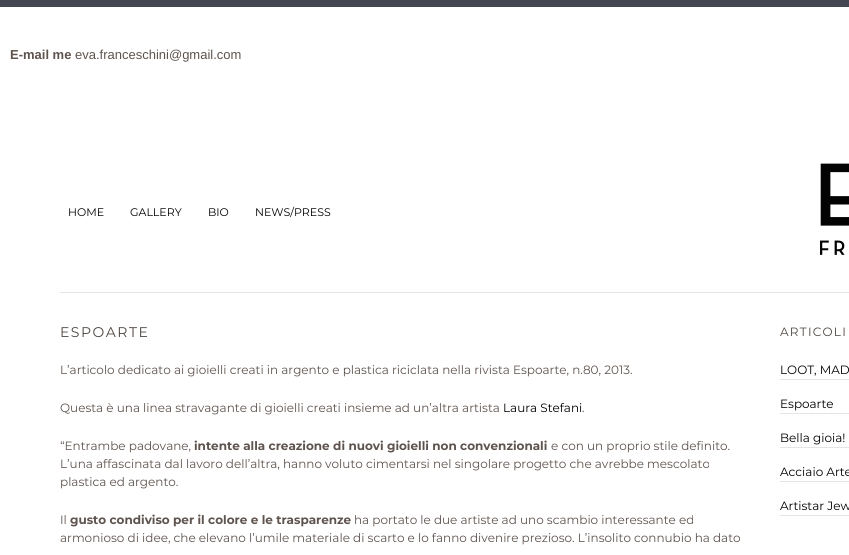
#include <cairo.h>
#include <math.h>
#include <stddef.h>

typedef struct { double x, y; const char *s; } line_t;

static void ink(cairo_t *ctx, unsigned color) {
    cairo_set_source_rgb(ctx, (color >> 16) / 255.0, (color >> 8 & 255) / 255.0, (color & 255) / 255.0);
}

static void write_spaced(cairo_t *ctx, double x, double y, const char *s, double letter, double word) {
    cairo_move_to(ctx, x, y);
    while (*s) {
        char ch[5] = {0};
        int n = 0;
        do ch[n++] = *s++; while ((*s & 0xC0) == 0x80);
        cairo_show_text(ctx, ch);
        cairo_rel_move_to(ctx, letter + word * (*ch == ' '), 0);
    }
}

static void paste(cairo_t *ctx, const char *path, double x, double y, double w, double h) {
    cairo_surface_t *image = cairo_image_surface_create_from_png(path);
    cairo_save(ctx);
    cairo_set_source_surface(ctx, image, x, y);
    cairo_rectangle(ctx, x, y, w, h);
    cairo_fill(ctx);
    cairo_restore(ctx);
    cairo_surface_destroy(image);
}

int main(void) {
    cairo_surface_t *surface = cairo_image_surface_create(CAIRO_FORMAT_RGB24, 849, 555);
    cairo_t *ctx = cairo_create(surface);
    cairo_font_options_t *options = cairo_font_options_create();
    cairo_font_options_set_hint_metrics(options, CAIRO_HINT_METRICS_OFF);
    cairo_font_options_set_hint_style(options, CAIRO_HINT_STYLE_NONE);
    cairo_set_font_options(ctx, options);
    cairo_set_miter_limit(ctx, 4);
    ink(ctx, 0xFFFFFF);
    cairo_paint(ctx);
    ink(ctx, 0x444652);
    cairo_rectangle(ctx, 0, 0, 849, 7);
    cairo_fill(ctx);
    cairo_select_font_face(ctx, "Liberation Sans", CAIRO_FONT_SLANT_NORMAL, CAIRO_FONT_WEIGHT_BOLD);
    cairo_set_font_size(ctx, 13);
    ink(ctx, 0x5E534E);
    cairo_move_to(ctx, 10, 59);
    cairo_show_text(ctx, "E-mail me");
    cairo_select_font_face(ctx, "Liberation Sans", CAIRO_FONT_SLANT_NORMAL, CAIRO_FONT_WEIGHT_NORMAL);
    cairo_move_to(ctx, 75, 59);
    cairo_show_text(ctx, "eva.franceschini@gmail.com");
    ink(ctx, 0xE5E5E5);
    cairo_rectangle(ctx, 60, 292, 789, 1);
    cairo_fill(ctx);
    cairo_select_font_face(ctx, "Montserrat", CAIRO_FONT_SLANT_NORMAL, CAIRO_FONT_WEIGHT_NORMAL);
    cairo_set_font_size(ctx, 11);
    ink(ctx, 0x000000);
    {
        static const line_t items[] = {
            {68, 216, "HOME"},
            {130, 216, "GALLERY"},
            {208, 216, "BIO"},
            {255, 216, "NEWS/PRESS"},
        };
        for (size_t i = 0; i < sizeof items / sizeof *items; i++) {
            cairo_move_to(ctx, items[i].x, items[i].y);
            cairo_show_text(ctx, items[i].s);
        }
    }
    paste(ctx, "media/1.png", 820, 163, 29, 92);
    cairo_set_font_size(ctx, 14);
    ink(ctx, 0x4F4640);
    write_spaced(ctx, 60, 337, "ESPOARTE", 1.5, 0);
    cairo_set_font_size(ctx, 12);
    ink(ctx, 0x5E534E);
    cairo_move_to(ctx, 60, 374);
    cairo_show_text(ctx, "L’articolo dedicato ai gioielli creati in argento e plastica riciclata nella rivista Espoarte, n.80, 2013.");
    cairo_move_to(ctx, 60, 412);
    cairo_show_text(ctx, "Questa è una linea stravagante di gioielli creati insieme ad un’altra artista");
    ink(ctx, 0x000000);
    cairo_move_to(ctx, 503, 412);
    cairo_show_text(ctx, "Laura Stefani");
    ink(ctx, 0x5E534E);
    cairo_move_to(ctx, 582, 412);
    cairo_show_text(ctx, ".");
    cairo_move_to(ctx, 60, 450);
    cairo_show_text(ctx, "“Entrambe padovane,");
    cairo_select_font_face(ctx, "Montserrat", CAIRO_FONT_SLANT_NORMAL, CAIRO_FONT_WEIGHT_BOLD);
    cairo_move_to(ctx, 194, 450);
    cairo_show_text(ctx, "intente alla creazione di nuovi gioielli non convenzionali");
    cairo_select_font_face(ctx, "Montserrat", CAIRO_FONT_SLANT_NORMAL, CAIRO_FONT_WEIGHT_NORMAL);
    {
        static const line_t items[] = {
            {551, 450, "e con un proprio stile definito."},
            {60, 468, "L’una affascinata dal lavoro dell’altra, hanno voluto cimentarsi nel singolare progetto che avrebbe mescolato"},
            {60, 486, "plastica ed argento."},
            {60, 524, "Il"},
        };
        for (size_t i = 0; i < sizeof items / sizeof *items; i++) {
            cairo_move_to(ctx, items[i].x, items[i].y);
            cairo_show_text(ctx, items[i].s);
        }
    }
    cairo_select_font_face(ctx, "Montserrat", CAIRO_FONT_SLANT_NORMAL, CAIRO_FONT_WEIGHT_BOLD);
    cairo_move_to(ctx, 70, 524);
    cairo_show_text(ctx, "gusto condiviso per il colore e le trasparenze");
    cairo_select_font_face(ctx, "Montserrat", CAIRO_FONT_SLANT_NORMAL, CAIRO_FONT_WEIGHT_NORMAL);
    cairo_move_to(ctx, 354, 524);
    cairo_show_text(ctx, "ha portato le due artiste ad uno scambio interessante ed");
    cairo_move_to(ctx, 60, 542);
    cairo_show_text(ctx, "armonioso di idee, che elevano l’umile materiale di scarto e lo fanno divenire prezioso. L’insolito connubio ha dato");
    ink(ctx, 0x4F4640);
    write_spaced(ctx, 780, 336, "ARTICOLI", 1.25, 0);
    ink(ctx, 0xE5E5E5);
    cairo_rectangle(ctx, 780, 379, 69, 1);
    cairo_fill(ctx);
    ink(ctx, 0x000000);
    cairo_move_to(ctx, 780, 374);
    cairo_show_text(ctx, "LOOT, MAD");
    ink(ctx, 0xE5E5E5);
    cairo_rectangle(ctx, 780, 413, 69, 1);
    cairo_fill(ctx);
    ink(ctx, 0x000000);
    cairo_move_to(ctx, 780, 408);
    cairo_show_text(ctx, "Espoarte");
    ink(ctx, 0xE5E5E5);
    cairo_rectangle(ctx, 780, 447, 69, 1);
    cairo_fill(ctx);
    ink(ctx, 0x000000);
    cairo_move_to(ctx, 780, 442);
    cairo_show_text(ctx, "Bella gioia!");
    ink(ctx, 0xE5E5E5);
    cairo_rectangle(ctx, 780, 481, 69, 1);
    cairo_fill(ctx);
    ink(ctx, 0x000000);
    cairo_move_to(ctx, 780, 476);
    cairo_show_text(ctx, "Acciaio Arte");
    ink(ctx, 0xE5E5E5);
    cairo_rectangle(ctx, 780, 515, 69, 1);
    cairo_fill(ctx);
    ink(ctx, 0x000000);
    cairo_move_to(ctx, 780, 510);
    cairo_show_text(ctx, "Artistar Jew");
    cairo_surface_write_to_png(surface, "image.png");
    cairo_font_options_destroy(options);
    cairo_destroy(ctx);
    cairo_surface_destroy(surface);
    return 0;
}
